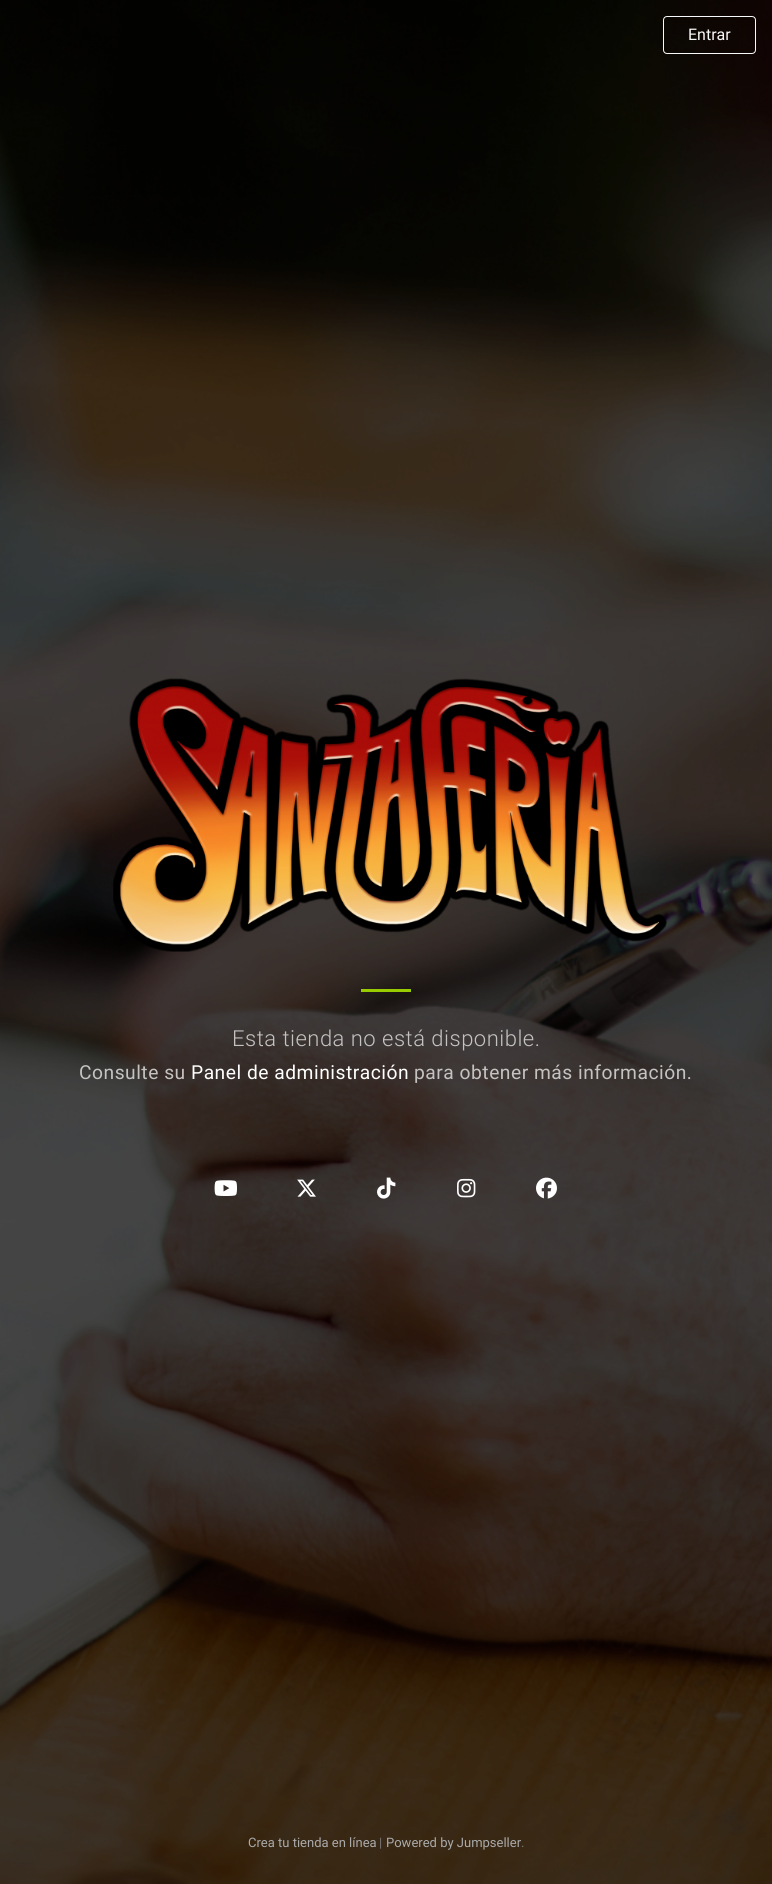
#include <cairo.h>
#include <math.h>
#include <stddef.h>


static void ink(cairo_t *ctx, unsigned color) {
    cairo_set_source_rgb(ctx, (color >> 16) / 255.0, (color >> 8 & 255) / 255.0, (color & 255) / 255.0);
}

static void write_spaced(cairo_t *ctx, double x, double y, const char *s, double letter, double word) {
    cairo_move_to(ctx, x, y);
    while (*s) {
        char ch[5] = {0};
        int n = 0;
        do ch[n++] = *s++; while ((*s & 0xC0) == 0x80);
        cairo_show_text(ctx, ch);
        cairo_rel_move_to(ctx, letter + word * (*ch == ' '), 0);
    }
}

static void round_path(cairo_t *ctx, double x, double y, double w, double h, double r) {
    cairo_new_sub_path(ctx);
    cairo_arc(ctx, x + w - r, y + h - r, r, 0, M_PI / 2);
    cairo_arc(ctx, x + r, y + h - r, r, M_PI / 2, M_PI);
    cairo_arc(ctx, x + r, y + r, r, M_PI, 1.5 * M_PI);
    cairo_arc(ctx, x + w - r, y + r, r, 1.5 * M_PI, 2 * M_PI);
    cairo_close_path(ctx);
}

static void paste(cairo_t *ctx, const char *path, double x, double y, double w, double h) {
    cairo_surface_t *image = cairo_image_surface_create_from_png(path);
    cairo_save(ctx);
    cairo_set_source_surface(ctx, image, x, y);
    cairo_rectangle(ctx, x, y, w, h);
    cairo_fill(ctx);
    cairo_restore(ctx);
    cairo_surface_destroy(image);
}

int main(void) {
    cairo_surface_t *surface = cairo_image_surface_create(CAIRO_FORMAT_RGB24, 772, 1884);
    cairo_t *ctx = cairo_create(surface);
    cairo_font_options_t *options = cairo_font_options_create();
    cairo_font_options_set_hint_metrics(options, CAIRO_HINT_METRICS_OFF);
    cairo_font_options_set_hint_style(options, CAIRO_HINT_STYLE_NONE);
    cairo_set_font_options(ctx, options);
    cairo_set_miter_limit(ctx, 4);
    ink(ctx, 0xFFFFFF);
    cairo_paint(ctx);
    paste(ctx, "media/1.png", 0, 0, 772, 1884);
    round_path(ctx, 663.5, 16.5, 92, 37, 3.5);
    ink(ctx, 0xF8F9FA);
    cairo_set_line_width(ctx, 1);
    cairo_stroke(ctx);
    cairo_select_font_face(ctx, "Roboto", CAIRO_FONT_SLANT_NORMAL, CAIRO_FONT_WEIGHT_NORMAL);
    cairo_set_font_size(ctx, 16);
    cairo_move_to(ctx, 688, 40);
    cairo_show_text(ctx, "Entrar");
    paste(ctx, "media/2.png", 113, 678, 554, 274);
    ink(ctx, 0x99CC00);
    cairo_rectangle(ctx, 361, 989, 50, 3);
    cairo_fill(ctx);
    cairo_select_font_face(ctx, "Roboto Light", CAIRO_FONT_SLANT_NORMAL, CAIRO_FONT_WEIGHT_NORMAL);
    cairo_set_font_size(ctx, 22);
    ink(ctx, 0xC4C3C2);
    write_spaced(ctx, 232, 1046, "Esta tienda no está disponible.", 0.5, 0);
    cairo_select_font_face(ctx, "Roboto", CAIRO_FONT_SLANT_NORMAL, CAIRO_FONT_WEIGHT_NORMAL);
    cairo_set_font_size(ctx, 19.25);
    write_spaced(ctx, 79, 1079, "Consulte su", 0.5, 0);
    ink(ctx, 0xFFFFFF);
    write_spaced(ctx, 191, 1079, "Panel de administración", 0.5, 0);
    ink(ctx, 0xC4C3C2);
    write_spaced(ctx, 414, 1079, "para obtener más información.", 0.5, 0);
    paste(ctx, "media/3.png", 214, 1180, 23, 16);
    paste(ctx, "media/4.png", 297, 1179, 19, 18);
    paste(ctx, "media/5.png", 377, 1177, 19, 22);
    paste(ctx, "media/6.png", 457, 1178, 19, 20);
    paste(ctx, "media/7.png", 536, 1177, 21, 22);
    cairo_set_font_size(ctx, 13);
    ink(ctx, 0xAAAAAA);
    cairo_move_to(ctx, 248, 1847);
    cairo_show_text(ctx, "Crea tu tienda en línea");
    ink(ctx, 0x777777);
    cairo_move_to(ctx, 379, 1847);
    cairo_show_text(ctx, "|");
    ink(ctx, 0xAAAAAA);
    cairo_move_to(ctx, 386, 1847);
    cairo_show_text(ctx, "Powered by Jumpseller");
    ink(ctx, 0x777777);
    cairo_move_to(ctx, 521, 1847);
    cairo_show_text(ctx, ".");
    cairo_surface_write_to_png(surface, "image.png");
    cairo_font_options_destroy(options);
    cairo_destroy(ctx);
    cairo_surface_destroy(surface);
    return 0;
}
